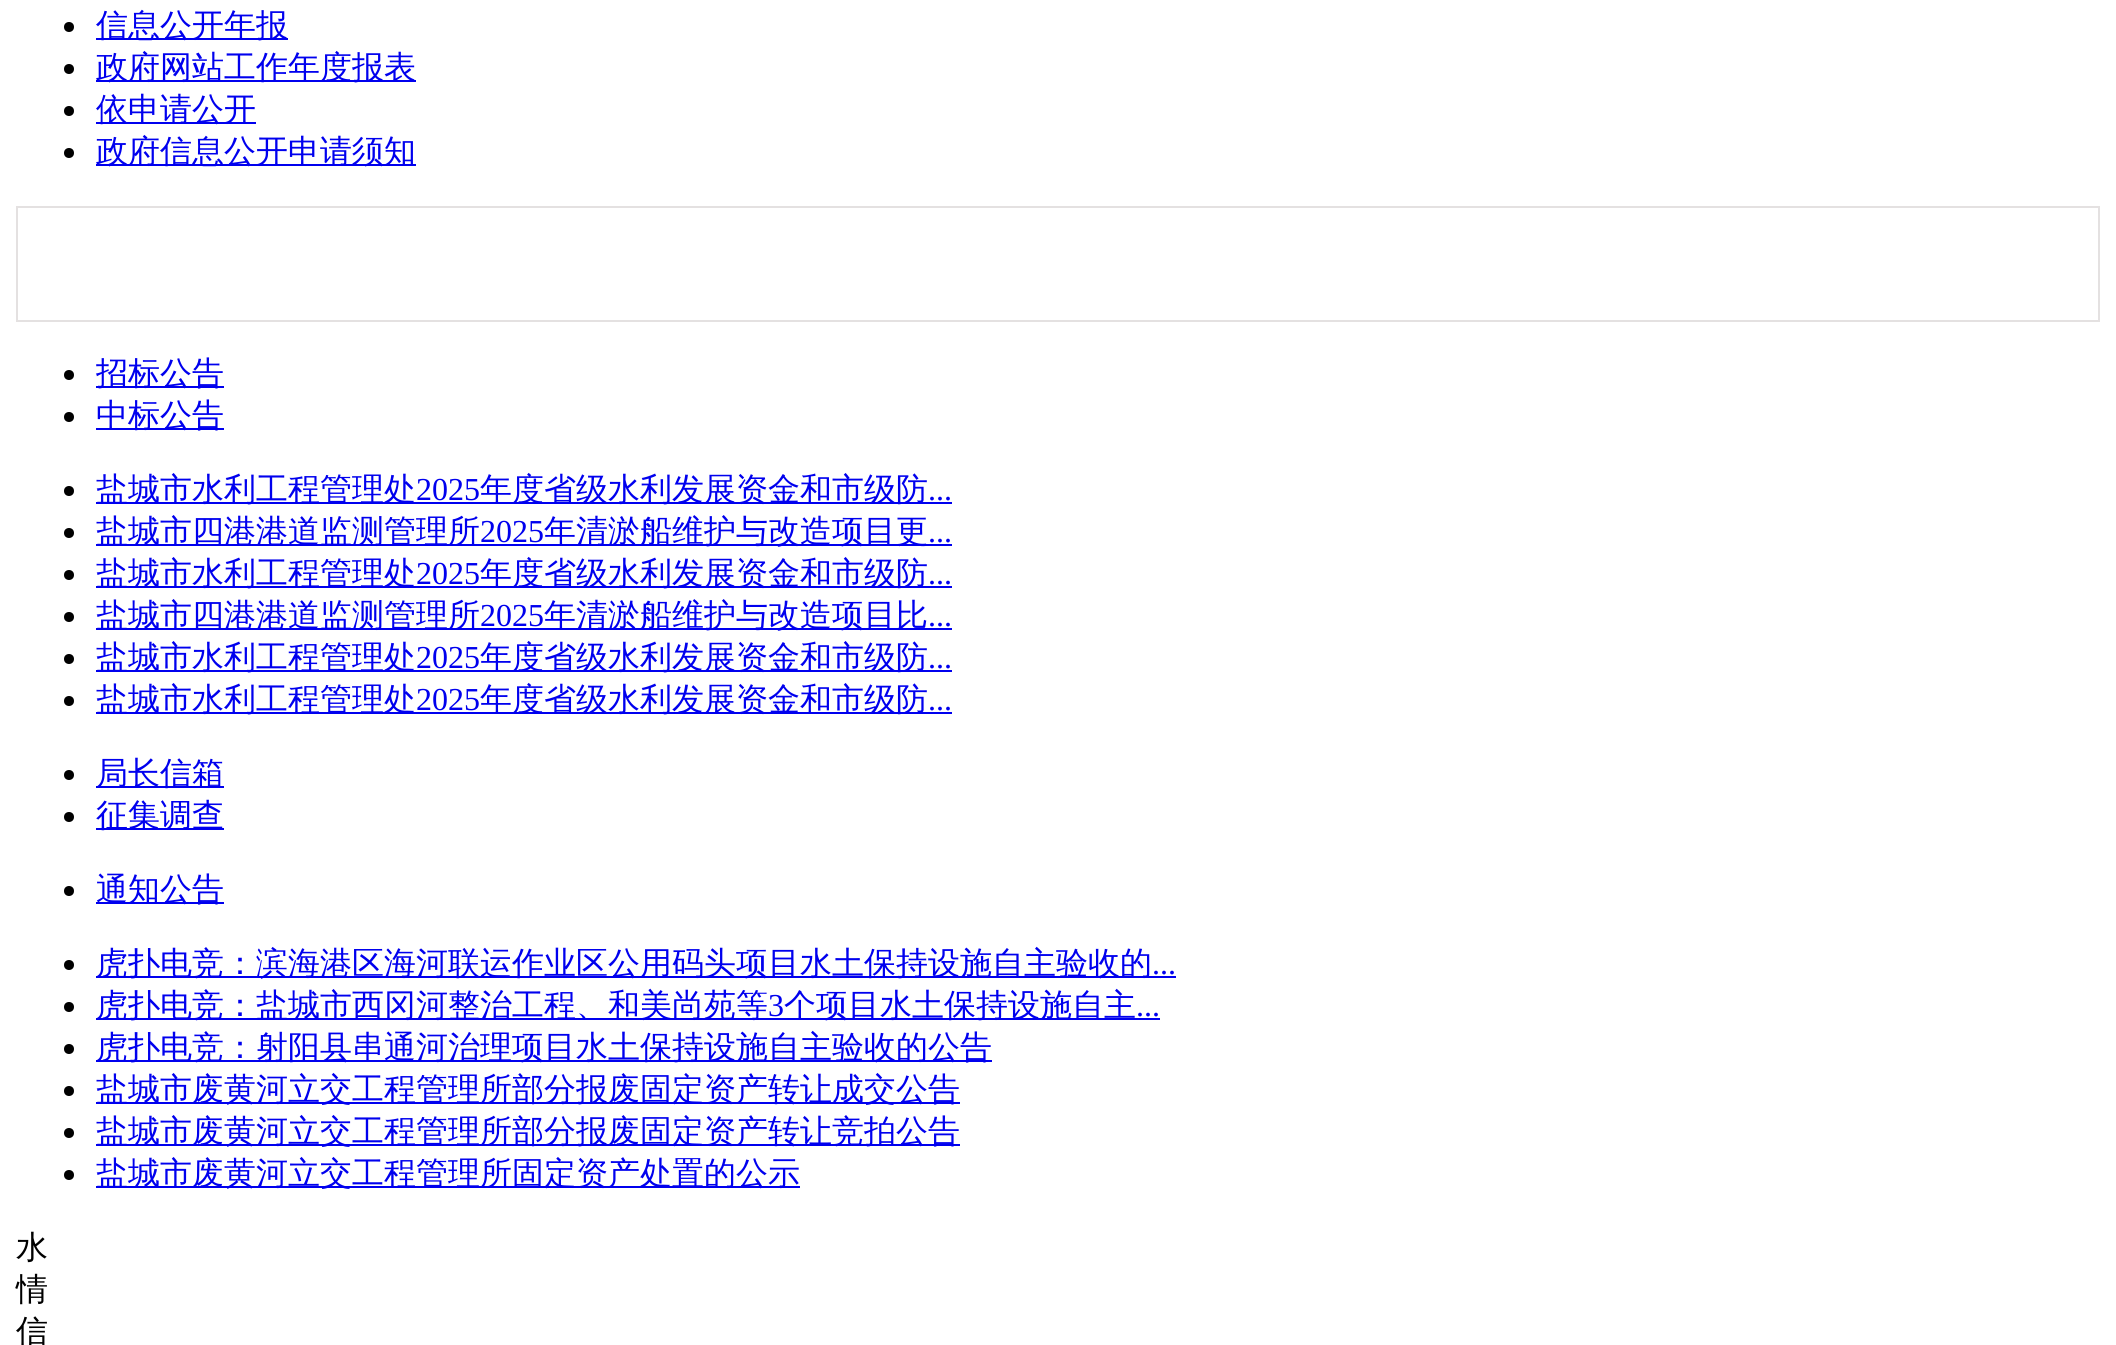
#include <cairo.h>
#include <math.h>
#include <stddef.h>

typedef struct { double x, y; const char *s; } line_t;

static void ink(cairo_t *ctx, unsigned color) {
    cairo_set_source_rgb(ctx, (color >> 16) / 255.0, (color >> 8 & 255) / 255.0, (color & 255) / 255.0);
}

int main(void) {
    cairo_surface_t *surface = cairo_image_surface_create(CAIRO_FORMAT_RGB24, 2116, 1345);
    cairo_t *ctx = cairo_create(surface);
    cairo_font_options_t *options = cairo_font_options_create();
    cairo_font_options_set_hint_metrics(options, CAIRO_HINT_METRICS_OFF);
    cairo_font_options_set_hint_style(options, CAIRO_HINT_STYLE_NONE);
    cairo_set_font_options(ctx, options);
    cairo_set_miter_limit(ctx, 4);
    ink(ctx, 0xFFFFFF);
    cairo_paint(ctx);
    ink(ctx, 0x000000);
    cairo_arc(ctx, 69, 27, 5, 0, 2 * M_PI);
    cairo_fill(ctx);
    ink(ctx, 0x0000EE);
    cairo_rectangle(ctx, 96, 38, 192, 2);
    cairo_fill(ctx);
    cairo_select_font_face(ctx, "WenQuanYi Zen Hei Medium", CAIRO_FONT_SLANT_NORMAL, CAIRO_FONT_WEIGHT_NORMAL);
    cairo_set_font_size(ctx, 32);
    cairo_move_to(ctx, 96, 36);
    cairo_show_text(ctx, "信息公开年报");
    ink(ctx, 0x000000);
    cairo_new_path(ctx);
    cairo_arc(ctx, 69, 69, 5, 0, 2 * M_PI);
    cairo_fill(ctx);
    ink(ctx, 0x0000EE);
    cairo_rectangle(ctx, 96, 80, 320, 2);
    cairo_fill(ctx);
    cairo_move_to(ctx, 96, 78);
    cairo_show_text(ctx, "政府网站工作年度报表");
    ink(ctx, 0x000000);
    cairo_new_path(ctx);
    cairo_arc(ctx, 69, 111, 5, 0, 2 * M_PI);
    cairo_fill(ctx);
    ink(ctx, 0x0000EE);
    cairo_rectangle(ctx, 96, 122, 160, 2);
    cairo_fill(ctx);
    cairo_move_to(ctx, 96, 120);
    cairo_show_text(ctx, "依申请公开");
    ink(ctx, 0x000000);
    cairo_new_path(ctx);
    cairo_arc(ctx, 69, 153, 5, 0, 2 * M_PI);
    cairo_fill(ctx);
    ink(ctx, 0x0000EE);
    cairo_rectangle(ctx, 96, 164, 320, 2);
    cairo_fill(ctx);
    cairo_move_to(ctx, 96, 162);
    cairo_show_text(ctx, "政府信息公开申请须知");
    cairo_rectangle(ctx, 17, 207, 2082, 114);
    ink(ctx, 0xE4E1E1);
    cairo_stroke(ctx);
    ink(ctx, 0x000000);
    cairo_arc(ctx, 69, 375, 5, 0, 2 * M_PI);
    cairo_fill(ctx);
    ink(ctx, 0x0000EE);
    cairo_rectangle(ctx, 96, 386, 128, 2);
    cairo_fill(ctx);
    cairo_move_to(ctx, 96, 384);
    cairo_show_text(ctx, "招标公告");
    ink(ctx, 0x000000);
    cairo_new_path(ctx);
    cairo_arc(ctx, 69, 417, 5, 0, 2 * M_PI);
    cairo_fill(ctx);
    ink(ctx, 0x0000EE);
    cairo_rectangle(ctx, 96, 428, 128, 2);
    cairo_fill(ctx);
    cairo_move_to(ctx, 96, 426);
    cairo_show_text(ctx, "中标公告");
    ink(ctx, 0x000000);
    cairo_new_path(ctx);
    cairo_arc(ctx, 69, 491, 5, 0, 2 * M_PI);
    cairo_fill(ctx);
    ink(ctx, 0x0000EE);
    cairo_rectangle(ctx, 96, 502, 856, 2);
    cairo_fill(ctx);
    cairo_move_to(ctx, 96, 500);
    cairo_show_text(ctx, "盐城市水利工程管理处");
    cairo_select_font_face(ctx, "Liberation Serif", CAIRO_FONT_SLANT_NORMAL, CAIRO_FONT_WEIGHT_NORMAL);
    cairo_move_to(ctx, 416, 500);
    cairo_show_text(ctx, "2025");
    cairo_select_font_face(ctx, "WenQuanYi Zen Hei Medium", CAIRO_FONT_SLANT_NORMAL, CAIRO_FONT_WEIGHT_NORMAL);
    cairo_move_to(ctx, 480, 500);
    cairo_show_text(ctx, "年度省级水利发展资金和市级防");
    cairo_select_font_face(ctx, "Liberation Serif", CAIRO_FONT_SLANT_NORMAL, CAIRO_FONT_WEIGHT_NORMAL);
    cairo_move_to(ctx, 928, 500);
    cairo_show_text(ctx, "...");
    ink(ctx, 0x000000);
    cairo_new_path(ctx);
    cairo_arc(ctx, 69, 533, 5, 0, 2 * M_PI);
    cairo_fill(ctx);
    ink(ctx, 0x0000EE);
    cairo_rectangle(ctx, 96, 544, 856, 2);
    cairo_fill(ctx);
    cairo_select_font_face(ctx, "WenQuanYi Zen Hei Medium", CAIRO_FONT_SLANT_NORMAL, CAIRO_FONT_WEIGHT_NORMAL);
    cairo_move_to(ctx, 96, 542);
    cairo_show_text(ctx, "盐城市四港港道监测管理所");
    cairo_select_font_face(ctx, "Liberation Serif", CAIRO_FONT_SLANT_NORMAL, CAIRO_FONT_WEIGHT_NORMAL);
    cairo_move_to(ctx, 480, 542);
    cairo_show_text(ctx, "2025");
    cairo_select_font_face(ctx, "WenQuanYi Zen Hei Medium", CAIRO_FONT_SLANT_NORMAL, CAIRO_FONT_WEIGHT_NORMAL);
    cairo_move_to(ctx, 544, 542);
    cairo_show_text(ctx, "年清淤船维护与改造项目更");
    cairo_select_font_face(ctx, "Liberation Serif", CAIRO_FONT_SLANT_NORMAL, CAIRO_FONT_WEIGHT_NORMAL);
    cairo_move_to(ctx, 928, 542);
    cairo_show_text(ctx, "...");
    ink(ctx, 0x000000);
    cairo_new_path(ctx);
    cairo_arc(ctx, 69, 575, 5, 0, 2 * M_PI);
    cairo_fill(ctx);
    ink(ctx, 0x0000EE);
    cairo_rectangle(ctx, 96, 586, 856, 2);
    cairo_fill(ctx);
    cairo_select_font_face(ctx, "WenQuanYi Zen Hei Medium", CAIRO_FONT_SLANT_NORMAL, CAIRO_FONT_WEIGHT_NORMAL);
    cairo_move_to(ctx, 96, 584);
    cairo_show_text(ctx, "盐城市水利工程管理处");
    cairo_select_font_face(ctx, "Liberation Serif", CAIRO_FONT_SLANT_NORMAL, CAIRO_FONT_WEIGHT_NORMAL);
    cairo_move_to(ctx, 416, 584);
    cairo_show_text(ctx, "2025");
    cairo_select_font_face(ctx, "WenQuanYi Zen Hei Medium", CAIRO_FONT_SLANT_NORMAL, CAIRO_FONT_WEIGHT_NORMAL);
    cairo_move_to(ctx, 480, 584);
    cairo_show_text(ctx, "年度省级水利发展资金和市级防");
    cairo_select_font_face(ctx, "Liberation Serif", CAIRO_FONT_SLANT_NORMAL, CAIRO_FONT_WEIGHT_NORMAL);
    cairo_move_to(ctx, 928, 584);
    cairo_show_text(ctx, "...");
    ink(ctx, 0x000000);
    cairo_new_path(ctx);
    cairo_arc(ctx, 69, 617, 5, 0, 2 * M_PI);
    cairo_fill(ctx);
    ink(ctx, 0x0000EE);
    cairo_rectangle(ctx, 96, 628, 856, 2);
    cairo_fill(ctx);
    cairo_select_font_face(ctx, "WenQuanYi Zen Hei Medium", CAIRO_FONT_SLANT_NORMAL, CAIRO_FONT_WEIGHT_NORMAL);
    cairo_move_to(ctx, 96, 626);
    cairo_show_text(ctx, "盐城市四港港道监测管理所");
    cairo_select_font_face(ctx, "Liberation Serif", CAIRO_FONT_SLANT_NORMAL, CAIRO_FONT_WEIGHT_NORMAL);
    cairo_move_to(ctx, 480, 626);
    cairo_show_text(ctx, "2025");
    cairo_select_font_face(ctx, "WenQuanYi Zen Hei Medium", CAIRO_FONT_SLANT_NORMAL, CAIRO_FONT_WEIGHT_NORMAL);
    cairo_move_to(ctx, 544, 626);
    cairo_show_text(ctx, "年清淤船维护与改造项目比");
    cairo_select_font_face(ctx, "Liberation Serif", CAIRO_FONT_SLANT_NORMAL, CAIRO_FONT_WEIGHT_NORMAL);
    cairo_move_to(ctx, 928, 626);
    cairo_show_text(ctx, "...");
    ink(ctx, 0x000000);
    cairo_new_path(ctx);
    cairo_arc(ctx, 69, 659, 5, 0, 2 * M_PI);
    cairo_fill(ctx);
    ink(ctx, 0x0000EE);
    cairo_rectangle(ctx, 96, 670, 856, 2);
    cairo_fill(ctx);
    cairo_select_font_face(ctx, "WenQuanYi Zen Hei Medium", CAIRO_FONT_SLANT_NORMAL, CAIRO_FONT_WEIGHT_NORMAL);
    cairo_move_to(ctx, 96, 668);
    cairo_show_text(ctx, "盐城市水利工程管理处");
    cairo_select_font_face(ctx, "Liberation Serif", CAIRO_FONT_SLANT_NORMAL, CAIRO_FONT_WEIGHT_NORMAL);
    cairo_move_to(ctx, 416, 668);
    cairo_show_text(ctx, "2025");
    cairo_select_font_face(ctx, "WenQuanYi Zen Hei Medium", CAIRO_FONT_SLANT_NORMAL, CAIRO_FONT_WEIGHT_NORMAL);
    cairo_move_to(ctx, 480, 668);
    cairo_show_text(ctx, "年度省级水利发展资金和市级防");
    cairo_select_font_face(ctx, "Liberation Serif", CAIRO_FONT_SLANT_NORMAL, CAIRO_FONT_WEIGHT_NORMAL);
    cairo_move_to(ctx, 928, 668);
    cairo_show_text(ctx, "...");
    ink(ctx, 0x000000);
    cairo_new_path(ctx);
    cairo_arc(ctx, 69, 701, 5, 0, 2 * M_PI);
    cairo_fill(ctx);
    ink(ctx, 0x0000EE);
    cairo_rectangle(ctx, 96, 712, 856, 2);
    cairo_fill(ctx);
    cairo_select_font_face(ctx, "WenQuanYi Zen Hei Medium", CAIRO_FONT_SLANT_NORMAL, CAIRO_FONT_WEIGHT_NORMAL);
    cairo_move_to(ctx, 96, 710);
    cairo_show_text(ctx, "盐城市水利工程管理处");
    cairo_select_font_face(ctx, "Liberation Serif", CAIRO_FONT_SLANT_NORMAL, CAIRO_FONT_WEIGHT_NORMAL);
    cairo_move_to(ctx, 416, 710);
    cairo_show_text(ctx, "2025");
    cairo_select_font_face(ctx, "WenQuanYi Zen Hei Medium", CAIRO_FONT_SLANT_NORMAL, CAIRO_FONT_WEIGHT_NORMAL);
    cairo_move_to(ctx, 480, 710);
    cairo_show_text(ctx, "年度省级水利发展资金和市级防");
    cairo_select_font_face(ctx, "Liberation Serif", CAIRO_FONT_SLANT_NORMAL, CAIRO_FONT_WEIGHT_NORMAL);
    cairo_move_to(ctx, 928, 710);
    cairo_show_text(ctx, "...");
    ink(ctx, 0x000000);
    cairo_new_path(ctx);
    cairo_arc(ctx, 69, 775, 5, 0, 2 * M_PI);
    cairo_fill(ctx);
    ink(ctx, 0x0000EE);
    cairo_rectangle(ctx, 96, 786, 128, 2);
    cairo_fill(ctx);
    cairo_select_font_face(ctx, "WenQuanYi Zen Hei Medium", CAIRO_FONT_SLANT_NORMAL, CAIRO_FONT_WEIGHT_NORMAL);
    cairo_move_to(ctx, 96, 784);
    cairo_show_text(ctx, "局长信箱");
    ink(ctx, 0x000000);
    cairo_new_path(ctx);
    cairo_arc(ctx, 69, 817, 5, 0, 2 * M_PI);
    cairo_fill(ctx);
    ink(ctx, 0x0000EE);
    cairo_rectangle(ctx, 96, 828, 128, 2);
    cairo_fill(ctx);
    cairo_move_to(ctx, 96, 826);
    cairo_show_text(ctx, "征集调查");
    ink(ctx, 0x000000);
    cairo_new_path(ctx);
    cairo_arc(ctx, 69, 891, 5, 0, 2 * M_PI);
    cairo_fill(ctx);
    ink(ctx, 0x0000EE);
    cairo_rectangle(ctx, 96, 902, 128, 2);
    cairo_fill(ctx);
    cairo_move_to(ctx, 96, 900);
    cairo_show_text(ctx, "通知公告");
    ink(ctx, 0x000000);
    cairo_new_path(ctx);
    cairo_arc(ctx, 69, 965, 5, 0, 2 * M_PI);
    cairo_fill(ctx);
    ink(ctx, 0x0000EE);
    cairo_rectangle(ctx, 96, 976, 1080, 2);
    cairo_fill(ctx);
    cairo_move_to(ctx, 96, 974);
    cairo_show_text(ctx, "虎扑电竞：滨海港区海河联运作业区公用码头项目水土保持设施自主验收的");
    cairo_select_font_face(ctx, "Liberation Serif", CAIRO_FONT_SLANT_NORMAL, CAIRO_FONT_WEIGHT_NORMAL);
    cairo_move_to(ctx, 1152, 974);
    cairo_show_text(ctx, "...");
    ink(ctx, 0x000000);
    cairo_new_path(ctx);
    cairo_arc(ctx, 69, 1007, 5, 0, 2 * M_PI);
    cairo_fill(ctx);
    ink(ctx, 0x0000EE);
    cairo_rectangle(ctx, 96, 1018, 1064, 2);
    cairo_fill(ctx);
    cairo_select_font_face(ctx, "WenQuanYi Zen Hei Medium", CAIRO_FONT_SLANT_NORMAL, CAIRO_FONT_WEIGHT_NORMAL);
    cairo_move_to(ctx, 96, 1016);
    cairo_show_text(ctx, "虎扑电竞：盐城市西冈河整治工程、和美尚苑等");
    cairo_select_font_face(ctx, "Liberation Serif", CAIRO_FONT_SLANT_NORMAL, CAIRO_FONT_WEIGHT_NORMAL);
    cairo_move_to(ctx, 768, 1016);
    cairo_show_text(ctx, "3");
    cairo_select_font_face(ctx, "WenQuanYi Zen Hei Medium", CAIRO_FONT_SLANT_NORMAL, CAIRO_FONT_WEIGHT_NORMAL);
    cairo_move_to(ctx, 784, 1016);
    cairo_show_text(ctx, "个项目水土保持设施自主");
    cairo_select_font_face(ctx, "Liberation Serif", CAIRO_FONT_SLANT_NORMAL, CAIRO_FONT_WEIGHT_NORMAL);
    cairo_move_to(ctx, 1136, 1016);
    cairo_show_text(ctx, "...");
    ink(ctx, 0x000000);
    cairo_new_path(ctx);
    cairo_arc(ctx, 69, 1049, 5, 0, 2 * M_PI);
    cairo_fill(ctx);
    ink(ctx, 0x0000EE);
    cairo_rectangle(ctx, 96, 1060, 896, 2);
    cairo_fill(ctx);
    cairo_select_font_face(ctx, "WenQuanYi Zen Hei Medium", CAIRO_FONT_SLANT_NORMAL, CAIRO_FONT_WEIGHT_NORMAL);
    cairo_move_to(ctx, 96, 1058);
    cairo_show_text(ctx, "虎扑电竞：射阳县串通河治理项目水土保持设施自主验收的公告");
    ink(ctx, 0x000000);
    cairo_new_path(ctx);
    cairo_arc(ctx, 69, 1091, 5, 0, 2 * M_PI);
    cairo_fill(ctx);
    ink(ctx, 0x0000EE);
    cairo_rectangle(ctx, 96, 1102, 864, 2);
    cairo_fill(ctx);
    cairo_move_to(ctx, 96, 1100);
    cairo_show_text(ctx, "盐城市废黄河立交工程管理所部分报废固定资产转让成交公告");
    ink(ctx, 0x000000);
    cairo_new_path(ctx);
    cairo_arc(ctx, 69, 1133, 5, 0, 2 * M_PI);
    cairo_fill(ctx);
    ink(ctx, 0x0000EE);
    cairo_rectangle(ctx, 96, 1144, 864, 2);
    cairo_fill(ctx);
    cairo_move_to(ctx, 96, 1142);
    cairo_show_text(ctx, "盐城市废黄河立交工程管理所部分报废固定资产转让竞拍公告");
    ink(ctx, 0x000000);
    cairo_new_path(ctx);
    cairo_arc(ctx, 69, 1175, 5, 0, 2 * M_PI);
    cairo_fill(ctx);
    ink(ctx, 0x0000EE);
    cairo_rectangle(ctx, 96, 1186, 704, 2);
    cairo_fill(ctx);
    cairo_move_to(ctx, 96, 1184);
    cairo_show_text(ctx, "盐城市废黄河立交工程管理所固定资产处置的公示");
    ink(ctx, 0x000000);
    {
        static const line_t items[] = {
            {16, 1258, "水"},
            {16, 1300, "情"},
            {16, 1342, "信"},
        };
        for (size_t i = 0; i < sizeof items / sizeof *items; i++) {
            cairo_move_to(ctx, items[i].x, items[i].y);
            cairo_show_text(ctx, items[i].s);
        }
    }
    cairo_surface_write_to_png(surface, "image.png");
    cairo_font_options_destroy(options);
    cairo_destroy(ctx);
    cairo_surface_destroy(surface);
    return 0;
}
